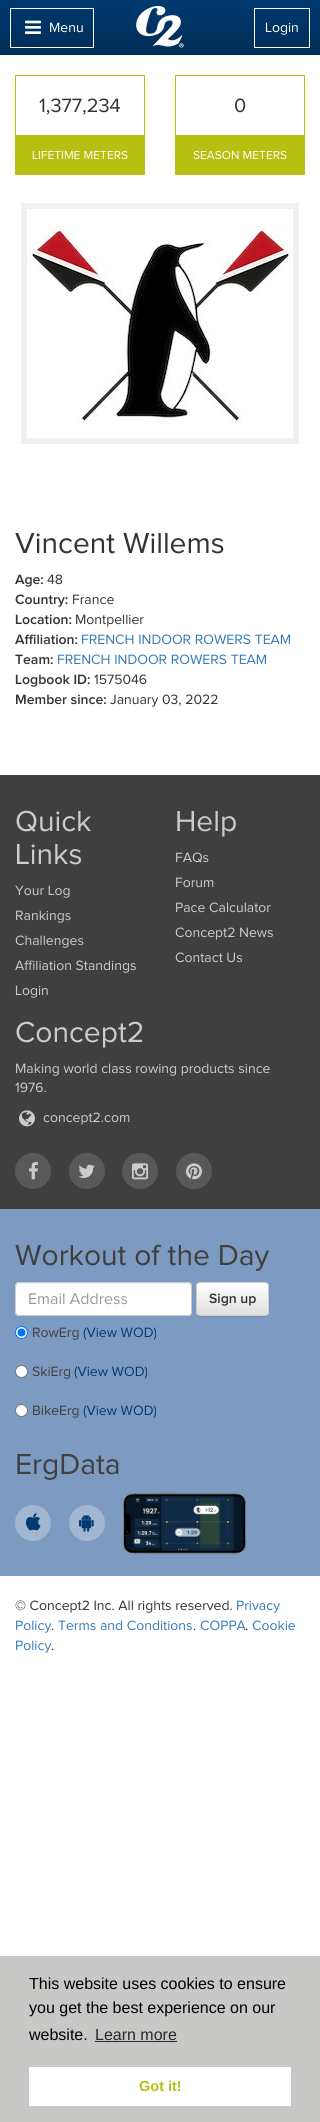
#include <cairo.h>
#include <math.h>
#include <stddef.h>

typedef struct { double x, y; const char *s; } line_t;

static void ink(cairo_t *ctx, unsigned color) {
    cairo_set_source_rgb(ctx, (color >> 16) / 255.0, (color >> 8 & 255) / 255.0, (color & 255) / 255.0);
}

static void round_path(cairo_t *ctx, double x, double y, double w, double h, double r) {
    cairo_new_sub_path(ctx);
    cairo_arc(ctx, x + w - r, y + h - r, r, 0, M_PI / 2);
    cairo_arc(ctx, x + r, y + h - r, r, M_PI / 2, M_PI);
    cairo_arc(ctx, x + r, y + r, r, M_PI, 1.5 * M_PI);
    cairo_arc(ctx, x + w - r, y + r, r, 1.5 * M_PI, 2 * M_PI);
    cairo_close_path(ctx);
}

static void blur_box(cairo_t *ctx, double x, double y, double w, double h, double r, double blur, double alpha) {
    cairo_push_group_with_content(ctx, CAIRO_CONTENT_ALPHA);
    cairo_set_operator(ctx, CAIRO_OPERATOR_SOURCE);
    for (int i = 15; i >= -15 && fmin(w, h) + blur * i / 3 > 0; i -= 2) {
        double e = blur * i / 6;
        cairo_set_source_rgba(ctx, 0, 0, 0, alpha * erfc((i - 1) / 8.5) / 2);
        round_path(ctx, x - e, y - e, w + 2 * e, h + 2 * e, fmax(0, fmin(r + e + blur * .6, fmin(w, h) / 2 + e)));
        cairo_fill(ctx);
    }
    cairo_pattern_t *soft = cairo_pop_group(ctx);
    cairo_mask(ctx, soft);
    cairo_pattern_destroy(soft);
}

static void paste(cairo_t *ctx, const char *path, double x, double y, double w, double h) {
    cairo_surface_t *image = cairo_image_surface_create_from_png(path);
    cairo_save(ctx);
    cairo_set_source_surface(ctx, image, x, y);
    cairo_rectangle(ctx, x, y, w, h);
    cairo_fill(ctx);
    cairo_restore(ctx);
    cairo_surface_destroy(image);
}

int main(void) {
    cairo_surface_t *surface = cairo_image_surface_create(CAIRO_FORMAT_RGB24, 320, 2122);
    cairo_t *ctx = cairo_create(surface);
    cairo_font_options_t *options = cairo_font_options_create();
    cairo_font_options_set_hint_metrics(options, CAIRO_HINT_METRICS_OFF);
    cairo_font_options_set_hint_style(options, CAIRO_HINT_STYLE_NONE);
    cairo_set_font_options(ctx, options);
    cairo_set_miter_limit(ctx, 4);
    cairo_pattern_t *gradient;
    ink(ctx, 0xFFFFFF);
    cairo_paint(ctx);
    gradient = cairo_pattern_create_linear(160, 0, 160, 55);
    cairo_pattern_add_color_stop_rgba(gradient, 0, 0, 0.227, 0.439, 1);
    cairo_pattern_add_color_stop_rgba(gradient, 1, 0, 0.176, 0.341, 1);
    cairo_set_source(ctx, gradient);
    cairo_pattern_destroy(gradient);
    cairo_rectangle(ctx, 0, 0, 320, 55);
    cairo_fill(ctx);
    cairo_rectangle(ctx, 10.5, 8.5, 83, 39);
    ink(ctx, 0xFFFFFF);
    cairo_set_line_width(ctx, 1);
    cairo_stroke(ctx);
    paste(ctx, "media/1.png", 25, 20, 16, 14);
    cairo_select_font_face(ctx, "Proxima Nova", CAIRO_FONT_SLANT_NORMAL, CAIRO_FONT_WEIGHT_NORMAL);
    cairo_set_font_size(ctx, 14);
    cairo_move_to(ctx, 49, 32);
    cairo_show_text(ctx, "Menu");
    paste(ctx, "media/2.png", 136, 5, 48, 43);
    cairo_rectangle(ctx, 254.5, 8.5, 55, 39);
    cairo_stroke(ctx);
    cairo_move_to(ctx, 265, 32);
    cairo_show_text(ctx, "Login");
    cairo_rectangle(ctx, 15.5, 75.5, 129, 60);
    ink(ctx, 0xB7BF10);
    cairo_stroke(ctx);
    cairo_set_font_size(ctx, 20);
    ink(ctx, 0x333333);
    cairo_move_to(ctx, 39, 112);
    cairo_show_text(ctx, "1,377,234");
    ink(ctx, 0xB7BF10);
    cairo_rectangle(ctx, 15, 136, 130, 39);
    cairo_fill(ctx);
    cairo_set_font_size(ctx, 12);
    ink(ctx, 0xFFFFFF);
    cairo_move_to(ctx, 32, 159);
    cairo_show_text(ctx, "LIFETIME METERS");
    cairo_rectangle(ctx, 175.5, 75.5, 129, 60);
    ink(ctx, 0xB7BF10);
    cairo_stroke(ctx);
    cairo_set_font_size(ctx, 20);
    ink(ctx, 0x333333);
    cairo_move_to(ctx, 234, 112);
    cairo_show_text(ctx, "0");
    ink(ctx, 0xB7BF10);
    cairo_rectangle(ctx, 175, 136, 130, 39);
    cairo_fill(ctx);
    cairo_set_font_size(ctx, 12);
    ink(ctx, 0xFFFFFF);
    cairo_move_to(ctx, 193, 159);
    cairo_show_text(ctx, "SEASON METERS");
    cairo_rectangle(ctx, 24, 206, 272, 235);
    ink(ctx, 0xF1F1F1);
    cairo_set_line_width(ctx, 6);
    cairo_stroke(ctx);
    paste(ctx, "media/3.png", 27, 225, 264, 200);
    cairo_set_font_size(ctx, 30);
    ink(ctx, 0x333333);
    cairo_move_to(ctx, 15, 553);
    cairo_show_text(ctx, "Vincent Willems");
    cairo_select_font_face(ctx, "Proxima Nova SemiBold", CAIRO_FONT_SLANT_NORMAL, CAIRO_FONT_WEIGHT_NORMAL);
    cairo_set_font_size(ctx, 14);
    cairo_move_to(ctx, 15, 584);
    cairo_show_text(ctx, "Age:");
    cairo_select_font_face(ctx, "Proxima Nova", CAIRO_FONT_SLANT_NORMAL, CAIRO_FONT_WEIGHT_NORMAL);
    cairo_move_to(ctx, 47, 584);
    cairo_show_text(ctx, "48");
    cairo_select_font_face(ctx, "Proxima Nova SemiBold", CAIRO_FONT_SLANT_NORMAL, CAIRO_FONT_WEIGHT_NORMAL);
    cairo_move_to(ctx, 15, 604);
    cairo_show_text(ctx, "Country:");
    cairo_select_font_face(ctx, "Proxima Nova", CAIRO_FONT_SLANT_NORMAL, CAIRO_FONT_WEIGHT_NORMAL);
    cairo_move_to(ctx, 72, 604);
    cairo_show_text(ctx, "France");
    cairo_select_font_face(ctx, "Proxima Nova SemiBold", CAIRO_FONT_SLANT_NORMAL, CAIRO_FONT_WEIGHT_NORMAL);
    cairo_move_to(ctx, 15, 624);
    cairo_show_text(ctx, "Location:");
    cairo_select_font_face(ctx, "Proxima Nova", CAIRO_FONT_SLANT_NORMAL, CAIRO_FONT_WEIGHT_NORMAL);
    cairo_move_to(ctx, 75, 624);
    cairo_show_text(ctx, "Montpellier");
    cairo_select_font_face(ctx, "Proxima Nova SemiBold", CAIRO_FONT_SLANT_NORMAL, CAIRO_FONT_WEIGHT_NORMAL);
    cairo_move_to(ctx, 15, 644);
    cairo_show_text(ctx, "Affiliation:");
    cairo_select_font_face(ctx, "Proxima Nova", CAIRO_FONT_SLANT_NORMAL, CAIRO_FONT_WEIGHT_NORMAL);
    ink(ctx, 0x337AB7);
    cairo_move_to(ctx, 81, 644);
    cairo_show_text(ctx, "FRENCH INDOOR ROWERS TEAM");
    cairo_select_font_face(ctx, "Proxima Nova SemiBold", CAIRO_FONT_SLANT_NORMAL, CAIRO_FONT_WEIGHT_NORMAL);
    ink(ctx, 0x333333);
    cairo_move_to(ctx, 15, 664);
    cairo_show_text(ctx, "Team:");
    cairo_select_font_face(ctx, "Proxima Nova", CAIRO_FONT_SLANT_NORMAL, CAIRO_FONT_WEIGHT_NORMAL);
    ink(ctx, 0x337AB7);
    cairo_move_to(ctx, 57, 664);
    cairo_show_text(ctx, "FRENCH INDOOR ROWERS TEAM");
    cairo_select_font_face(ctx, "Proxima Nova SemiBold", CAIRO_FONT_SLANT_NORMAL, CAIRO_FONT_WEIGHT_NORMAL);
    ink(ctx, 0x333333);
    cairo_move_to(ctx, 15, 684);
    cairo_show_text(ctx, "Logbook ID:");
    cairo_select_font_face(ctx, "Proxima Nova", CAIRO_FONT_SLANT_NORMAL, CAIRO_FONT_WEIGHT_NORMAL);
    cairo_move_to(ctx, 94, 684);
    cairo_show_text(ctx, "1575046");
    cairo_select_font_face(ctx, "Proxima Nova SemiBold", CAIRO_FONT_SLANT_NORMAL, CAIRO_FONT_WEIGHT_NORMAL);
    cairo_move_to(ctx, 15, 704);
    cairo_show_text(ctx, "Member since:");
    cairo_select_font_face(ctx, "Proxima Nova", CAIRO_FONT_SLANT_NORMAL, CAIRO_FONT_WEIGHT_NORMAL);
    cairo_move_to(ctx, 110, 704);
    cairo_show_text(ctx, "January 03, 2022");
    ink(ctx, 0x3F3F3F);
    cairo_rectangle(ctx, 0, 775, 320, 434);
    cairo_fill(ctx);
    cairo_set_font_size(ctx, 30);
    ink(ctx, 0xCCCCCC);
    cairo_move_to(ctx, 15, 831);
    cairo_show_text(ctx, "Quick");
    cairo_move_to(ctx, 15, 864);
    cairo_show_text(ctx, "Links");
    cairo_set_font_size(ctx, 14);
    {
        static const line_t items[] = {
            {15, 895, "Your Log"},
            {15, 920, "Rankings"},
            {15, 945, "Challenges"},
            {15, 970, "Affiliation Standings"},
            {15, 995, "Login"},
        };
        for (size_t i = 0; i < sizeof items / sizeof *items; i++) {
            cairo_move_to(ctx, items[i].x, items[i].y);
            cairo_show_text(ctx, items[i].s);
        }
    }
    cairo_set_font_size(ctx, 30);
    cairo_move_to(ctx, 175, 831);
    cairo_show_text(ctx, "Help");
    cairo_set_font_size(ctx, 14);
    {
        static const line_t items[] = {
            {175, 862, "FAQs"},
            {175, 887, "Forum"},
            {175, 912, "Pace Calculator"},
            {175, 937, "Concept2 News"},
            {175, 962, "Contact Us"},
        };
        for (size_t i = 0; i < sizeof items / sizeof *items; i++) {
            cairo_move_to(ctx, items[i].x, items[i].y);
            cairo_show_text(ctx, items[i].s);
        }
    }
    cairo_set_font_size(ctx, 30);
    cairo_move_to(ctx, 15, 1042);
    cairo_show_text(ctx, "Concept2");
    cairo_set_font_size(ctx, 14);
    cairo_move_to(ctx, 15, 1073);
    cairo_show_text(ctx, "Making world class rowing products since");
    cairo_move_to(ctx, 15, 1092);
    cairo_show_text(ctx, "1976.");
    paste(ctx, "media/4.png", 19, 1110, 16, 17);
    cairo_move_to(ctx, 43, 1122);
    cairo_show_text(ctx, "concept2.com");
    ink(ctx, 0x595959);
    cairo_new_path(ctx);
    cairo_arc(ctx, 33, 1171, 18, 0, 2 * M_PI);
    cairo_fill(ctx);
    paste(ctx, "media/5.png", 29, 1162, 9, 18);
    cairo_arc(ctx, 87, 1171, 18, 0, 2 * M_PI);
    cairo_fill(ctx);
    paste(ctx, "media/6.png", 78, 1164, 17, 14);
    cairo_arc(ctx, 140, 1171, 18, 0, 2 * M_PI);
    cairo_fill(ctx);
    paste(ctx, "media/7.png", 132, 1163, 16, 17);
    cairo_arc(ctx, 194, 1171, 18, 0, 2 * M_PI);
    cairo_fill(ctx);
    paste(ctx, "media/8.png", 186, 1163, 16, 17);
    ink(ctx, 0x7D9BC1);
    cairo_rectangle(ctx, 0, 1209, 320, 367);
    cairo_fill(ctx);
    cairo_set_font_size(ctx, 30);
    ink(ctx, 0x3F3F3F);
    cairo_move_to(ctx, 15, 1265);
    cairo_show_text(ctx, "Workout of the Day");
    ink(ctx, 0xFFFFFF);
    round_path(ctx, 15, 1282, 177, 34, 4);
    cairo_fill(ctx);
    ink(ctx, 0xECECEC);
    cairo_new_path(ctx);
    cairo_move_to(ctx, 19, 1284);
    cairo_line_to(ctx, 188, 1284);
    cairo_curve_to(ctx, 190, 1284, 191, 1285, 191, 1287);
    cairo_line_to(ctx, 191, 1286);
    cairo_curve_to(ctx, 191, 1284, 190, 1283, 188, 1283);
    cairo_line_to(ctx, 19, 1283);
    cairo_curve_to(ctx, 17, 1283, 16, 1284, 16, 1286);
    cairo_line_to(ctx, 16, 1287);
    cairo_curve_to(ctx, 16, 1285, 17, 1284, 19, 1284);
    cairo_close_path(ctx);
    cairo_fill(ctx);
    round_path(ctx, 15.5, 1282.5, 176, 33, 3.5);
    ink(ctx, 0xCCCCCC);
    cairo_set_line_width(ctx, 1);
    cairo_stroke(ctx);
    cairo_set_font_size(ctx, 16);
    ink(ctx, 0x999999);
    cairo_move_to(ctx, 28, 1304);
    cairo_show_text(ctx, "Email Address");
    ink(ctx, 0x000000);
    blur_box(ctx, 196, 1283, 73, 34, 4, 0.5, 0.07);
    cairo_save(ctx);
    round_path(ctx, 196, 1282, 73, 34, 4);
    cairo_clip(ctx);
    gradient = cairo_pattern_create_linear(233, 1283, 233, 1315);
    cairo_pattern_add_color_stop_rgba(gradient, 0, 1, 1, 1, 1);
    cairo_pattern_add_color_stop_rgba(gradient, 1, 0.878, 0.878, 0.878, 1);
    cairo_set_source(ctx, gradient);
    cairo_pattern_destroy(gradient);
    cairo_rectangle(ctx, 196, 1283, 73, 32);
    cairo_fill(ctx);
    cairo_restore(ctx);
    round_path(ctx, 196.5, 1282.5, 72, 33, 3.5);
    ink(ctx, 0xCCCCCC);
    cairo_stroke(ctx);
    cairo_select_font_face(ctx, "Proxima Nova SemiBold", CAIRO_FONT_SLANT_NORMAL, CAIRO_FONT_WEIGHT_NORMAL);
    cairo_set_font_size(ctx, 14);
    ink(ctx, 0x333333);
    cairo_move_to(ctx, 209, 1303);
    cairo_show_text(ctx, "Sign up");
    ink(ctx, 0xFFFFFF);
    cairo_new_path(ctx);
    cairo_arc(ctx, 21.5, 1332.5, 6, 0, 2 * M_PI);
    cairo_fill_preserve(ctx);
    ink(ctx, 0x0075FF);
    cairo_stroke(ctx);
    cairo_arc(ctx, 21.5, 1332.5, 4, 0, 2 * M_PI);
    cairo_fill(ctx);
    cairo_select_font_face(ctx, "Proxima Nova", CAIRO_FONT_SLANT_NORMAL, CAIRO_FONT_WEIGHT_NORMAL);
    ink(ctx, 0x3F3F3F);
    cairo_move_to(ctx, 32, 1337);
    cairo_show_text(ctx, "RowErg");
    ink(ctx, 0x003A70);
    cairo_move_to(ctx, 83, 1337);
    cairo_show_text(ctx, "(View WOD)");
    ink(ctx, 0xFFFFFF);
    cairo_new_path(ctx);
    cairo_arc(ctx, 21.5, 1371.5, 6, 0, 2 * M_PI);
    cairo_fill_preserve(ctx);
    ink(ctx, 0x767676);
    cairo_stroke(ctx);
    ink(ctx, 0x3F3F3F);
    cairo_move_to(ctx, 32, 1376);
    cairo_show_text(ctx, "SkiErg");
    ink(ctx, 0x003A70);
    cairo_move_to(ctx, 74, 1376);
    cairo_show_text(ctx, "(View WOD)");
    ink(ctx, 0xFFFFFF);
    cairo_new_path(ctx);
    cairo_arc(ctx, 21.5, 1410.5, 6, 0, 2 * M_PI);
    cairo_fill_preserve(ctx);
    ink(ctx, 0x767676);
    cairo_stroke(ctx);
    ink(ctx, 0x3F3F3F);
    cairo_move_to(ctx, 32, 1415);
    cairo_show_text(ctx, "BikeErg");
    ink(ctx, 0x003A70);
    cairo_move_to(ctx, 83, 1415);
    cairo_show_text(ctx, "(View WOD)");
    cairo_set_font_size(ctx, 30);
    ink(ctx, 0x3F3F3F);
    cairo_move_to(ctx, 15, 1474);
    cairo_show_text(ctx, "ErgData");
    ink(ctx, 0xA0B6D1);
    cairo_new_path(ctx);
    cairo_arc(ctx, 33, 1523, 18, 0, 2 * M_PI);
    cairo_fill(ctx);
    paste(ctx, "media/9.png", 26, 1513, 15, 18);
    cairo_arc(ctx, 87, 1523, 18, 0, 2 * M_PI);
    cairo_fill(ctx);
    paste(ctx, "media/10.png", 79, 1514, 15, 18);
    paste(ctx, "media/11.png", 122, 1492, 125, 63);
    cairo_set_font_size(ctx, 14);
    ink(ctx, 0x333333);
    cairo_move_to(ctx, 15, 1610);
    cairo_show_text(ctx, "© Concept2 Inc. All rights reserved.");
    ink(ctx, 0x337AB7);
    cairo_move_to(ctx, 236, 1610);
    cairo_show_text(ctx, "Privacy");
    cairo_move_to(ctx, 15, 1630);
    cairo_show_text(ctx, "Policy");
    ink(ctx, 0x333333);
    cairo_move_to(ctx, 51, 1630);
    cairo_show_text(ctx, ".");
    ink(ctx, 0x337AB7);
    cairo_move_to(ctx, 58, 1630);
    cairo_show_text(ctx, "Terms and Conditions");
    ink(ctx, 0x333333);
    cairo_move_to(ctx, 193, 1630);
    cairo_show_text(ctx, ".");
    ink(ctx, 0x337AB7);
    cairo_move_to(ctx, 200, 1630);
    cairo_show_text(ctx, "COPPA");
    ink(ctx, 0x333333);
    cairo_move_to(ctx, 245, 1630);
    cairo_show_text(ctx, ".");
    ink(ctx, 0x337AB7);
    cairo_move_to(ctx, 252, 1630);
    cairo_show_text(ctx, "Cookie");
    cairo_move_to(ctx, 15, 1650);
    cairo_show_text(ctx, "Policy");
    ink(ctx, 0x333333);
    cairo_move_to(ctx, 51, 1650);
    cairo_show_text(ctx, ".");
    ink(ctx, 0xC8C9C7);
    cairo_rectangle(ctx, 0, 1956, 320, 166);
    cairo_fill(ctx);
    cairo_select_font_face(ctx, "Liberation Sans", CAIRO_FONT_SLANT_NORMAL, CAIRO_FONT_WEIGHT_NORMAL);
    cairo_set_font_size(ctx, 16);
    ink(ctx, 0x000000);
    {
        static const line_t items[] = {
            {29, 1989, "This website uses cookies to ensure"},
            {29, 2013, "you get the best experience on our"},
            {29, 2040, "website."},
        };
        for (size_t i = 0; i < sizeof items / sizeof *items; i++) {
            cairo_move_to(ctx, items[i].x, items[i].y);
            cairo_show_text(ctx, items[i].s);
        }
    }
    ink(ctx, 0x282828);
    cairo_move_to(ctx, 95, 2040);
    cairo_show_text(ctx, "Learn more");
    cairo_rectangle(ctx, 95, 2041, 82, 1);
    cairo_fill(ctx);
    ink(ctx, 0xFFFFFF);
    cairo_rectangle(ctx, 29, 2067, 262, 39);
    cairo_fill(ctx);
    cairo_select_font_face(ctx, "Liberation Sans", CAIRO_FONT_SLANT_NORMAL, CAIRO_FONT_WEIGHT_BOLD);
    cairo_set_font_size(ctx, 14.5);
    ink(ctx, 0xB7BF10);
    cairo_move_to(ctx, 139, 2091);
    cairo_show_text(ctx, "Got it!");
    cairo_surface_write_to_png(surface, "image.png");
    cairo_font_options_destroy(options);
    cairo_destroy(ctx);
    cairo_surface_destroy(surface);
    return 0;
}
